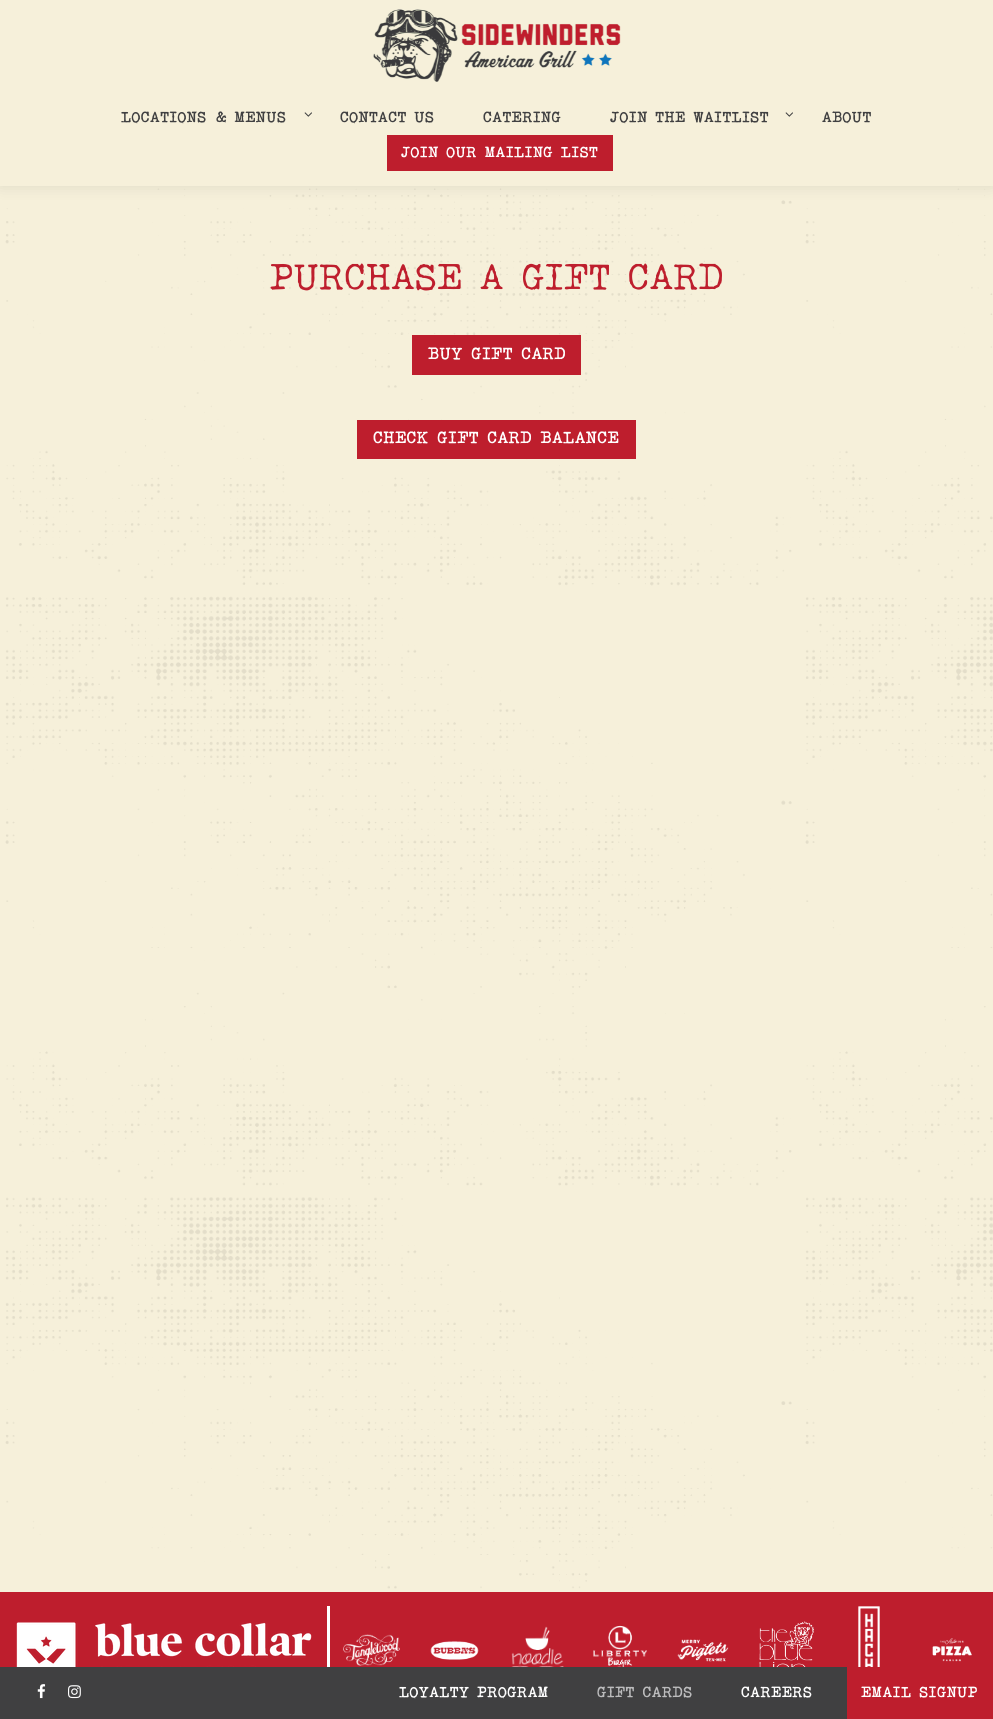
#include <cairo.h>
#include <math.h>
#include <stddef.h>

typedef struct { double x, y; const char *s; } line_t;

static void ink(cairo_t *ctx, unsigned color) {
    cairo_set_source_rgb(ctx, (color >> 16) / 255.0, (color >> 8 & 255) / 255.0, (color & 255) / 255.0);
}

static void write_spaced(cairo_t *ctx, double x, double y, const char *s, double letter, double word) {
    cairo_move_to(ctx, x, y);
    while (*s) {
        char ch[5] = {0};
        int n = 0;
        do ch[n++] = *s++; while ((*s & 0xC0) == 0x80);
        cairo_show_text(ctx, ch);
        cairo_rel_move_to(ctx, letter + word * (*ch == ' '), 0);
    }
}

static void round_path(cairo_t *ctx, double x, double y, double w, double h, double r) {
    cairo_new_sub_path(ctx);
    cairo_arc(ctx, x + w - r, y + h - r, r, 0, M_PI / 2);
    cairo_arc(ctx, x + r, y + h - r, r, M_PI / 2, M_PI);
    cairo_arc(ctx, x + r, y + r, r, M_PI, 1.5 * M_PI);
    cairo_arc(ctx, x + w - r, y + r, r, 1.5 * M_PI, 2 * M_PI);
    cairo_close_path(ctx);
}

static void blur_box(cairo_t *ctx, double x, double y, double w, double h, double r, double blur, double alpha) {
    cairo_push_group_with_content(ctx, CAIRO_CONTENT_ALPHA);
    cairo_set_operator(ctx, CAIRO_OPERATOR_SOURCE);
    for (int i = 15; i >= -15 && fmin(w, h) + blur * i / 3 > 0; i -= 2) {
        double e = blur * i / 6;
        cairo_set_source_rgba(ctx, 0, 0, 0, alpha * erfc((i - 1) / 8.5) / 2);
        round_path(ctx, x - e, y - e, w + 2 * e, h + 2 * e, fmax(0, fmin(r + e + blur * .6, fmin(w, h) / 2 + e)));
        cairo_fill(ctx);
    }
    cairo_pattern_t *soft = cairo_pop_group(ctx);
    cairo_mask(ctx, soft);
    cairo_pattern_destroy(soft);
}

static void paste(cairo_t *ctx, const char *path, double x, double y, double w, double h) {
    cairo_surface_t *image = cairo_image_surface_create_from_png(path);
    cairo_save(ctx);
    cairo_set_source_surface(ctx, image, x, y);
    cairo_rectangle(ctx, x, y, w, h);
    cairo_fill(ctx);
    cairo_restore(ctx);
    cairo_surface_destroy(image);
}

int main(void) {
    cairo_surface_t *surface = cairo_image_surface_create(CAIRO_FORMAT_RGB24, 993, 1719);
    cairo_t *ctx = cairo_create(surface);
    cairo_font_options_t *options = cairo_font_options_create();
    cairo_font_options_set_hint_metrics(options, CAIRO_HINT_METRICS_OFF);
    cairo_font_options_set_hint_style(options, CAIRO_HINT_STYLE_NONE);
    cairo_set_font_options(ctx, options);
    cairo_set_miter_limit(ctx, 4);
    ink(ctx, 0xF6F0DA);
    cairo_paint(ctx);
    paste(ctx, "media/1.png", 5, 188, 988, 1401);
    ink(ctx, 0x000000);
    blur_box(ctx, 0, -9, 993, 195, 0, 7.5, 0.1);
    ink(ctx, 0xF6F0DA);
    cairo_rectangle(ctx, 0, 0, 993, 186);
    cairo_fill(ctx);
    paste(ctx, "media/2.png", 373, 9, 248, 73);
    cairo_select_font_face(ctx, "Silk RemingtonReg", CAIRO_FONT_SLANT_NORMAL, CAIRO_FONT_WEIGHT_BOLD);
    cairo_set_font_size(ctx, 13.5);
    ink(ctx, 0x404041);
    write_spaced(ctx, 121, 122, "LOCATIONS & MENUS", 1, 0);
    paste(ctx, "media/3.png", 304, 112, 8, 5);
    {
        static const line_t items[] = {
            {340, 122, "CONTACT US"},
            {483, 122, "CATERING"},
            {610, 122, "JOIN THE WAITLIST"},
        };
        for (size_t i = 0; i < sizeof items / sizeof *items; i++) {
            write_spaced(ctx, items[i].x, items[i].y, items[i].s, 1, 0);
        }
    }
    paste(ctx, "media/3.png", 785, 112, 8, 5);
    write_spaced(ctx, 822, 122, "ABOUT", 1, 0);
    ink(ctx, 0xBE1E2D);
    cairo_rectangle(ctx, 387, 135, 226, 36);
    cairo_fill(ctx);
    ink(ctx, 0xFFFFFF);
    write_spaced(ctx, 401, 157, "JOIN OUR MAILING LIST", 1, 0);
    cairo_select_font_face(ctx, "Silk RemingtonReg", CAIRO_FONT_SLANT_NORMAL, CAIRO_FONT_WEIGHT_NORMAL);
    cairo_set_font_size(ctx, 33.75);
    ink(ctx, 0xBE1E2D);
    write_spaced(ctx, 270, 289, "PURCHASE A GIFT CARD", 1, 0);
    cairo_rectangle(ctx, 412, 335, 169, 40);
    cairo_fill(ctx);
    cairo_select_font_face(ctx, "Silk RemingtonReg", CAIRO_FONT_SLANT_NORMAL, CAIRO_FONT_WEIGHT_BOLD);
    cairo_set_font_size(ctx, 15);
    ink(ctx, 0xFFFFFF);
    write_spaced(ctx, 428, 359, "BUY GIFT CARD", 1, 0);
    ink(ctx, 0xBE1E2D);
    cairo_rectangle(ctx, 357, 420, 279, 39);
    cairo_fill(ctx);
    ink(ctx, 0xFFFFFF);
    write_spaced(ctx, 373, 443, "CHECK GIFT CARD BALANCE", 1, 0);
    ink(ctx, 0xBE1E2D);
    cairo_rectangle(ctx, 0, 1592, 993, 75);
    cairo_fill(ctx);
    ink(ctx, 0xFFFFFF);
    cairo_rectangle(ctx, 327, 1606, 3, 61);
    cairo_fill(ctx);
    paste(ctx, "media/4.png", 16, 1622, 296, 45);
    paste(ctx, "media/5.png", 343, 1634, 57, 32);
    paste(ctx, "media/6.png", 430, 1641, 49, 19);
    paste(ctx, "media/7.png", 511, 1626, 53, 41);
    paste(ctx, "media/8.png", 593, 1625, 54, 42);
    paste(ctx, "media/9.png", 677, 1639, 52, 23);
    paste(ctx, "media/10.png", 759, 1621, 55, 46);
    paste(ctx, "media/11.png", 858, 1606, 22, 61);
    paste(ctx, "media/12.png", 932, 1638, 40, 24);
    ink(ctx, 0x404041);
    cairo_rectangle(ctx, 0, 1667, 847, 52);
    cairo_fill(ctx);
    paste(ctx, "media/13.png", 37, 1684, 9, 15);
    paste(ctx, "media/14.png", 68, 1685, 13, 14);
    cairo_set_font_size(ctx, 13.5);
    ink(ctx, 0xFFFFFF);
    write_spaced(ctx, 399, 1697, "LOYALTY PROGRAM", 1, 0);
    ink(ctx, 0xBCBCBD);
    write_spaced(ctx, 597, 1697, "GIFT CARDS", 1, 0);
    ink(ctx, 0xFFFFFF);
    write_spaced(ctx, 741, 1697, "CAREERS", 1, 0);
    ink(ctx, 0xBE1E2D);
    cairo_rectangle(ctx, 847, 1667, 146, 52);
    cairo_fill(ctx);
    ink(ctx, 0xFFFFFF);
    write_spaced(ctx, 861, 1697, "EMAIL SIGNUP", 1, 0);
    cairo_surface_write_to_png(surface, "image.png");
    cairo_font_options_destroy(options);
    cairo_destroy(ctx);
    cairo_surface_destroy(surface);
    return 0;
}
